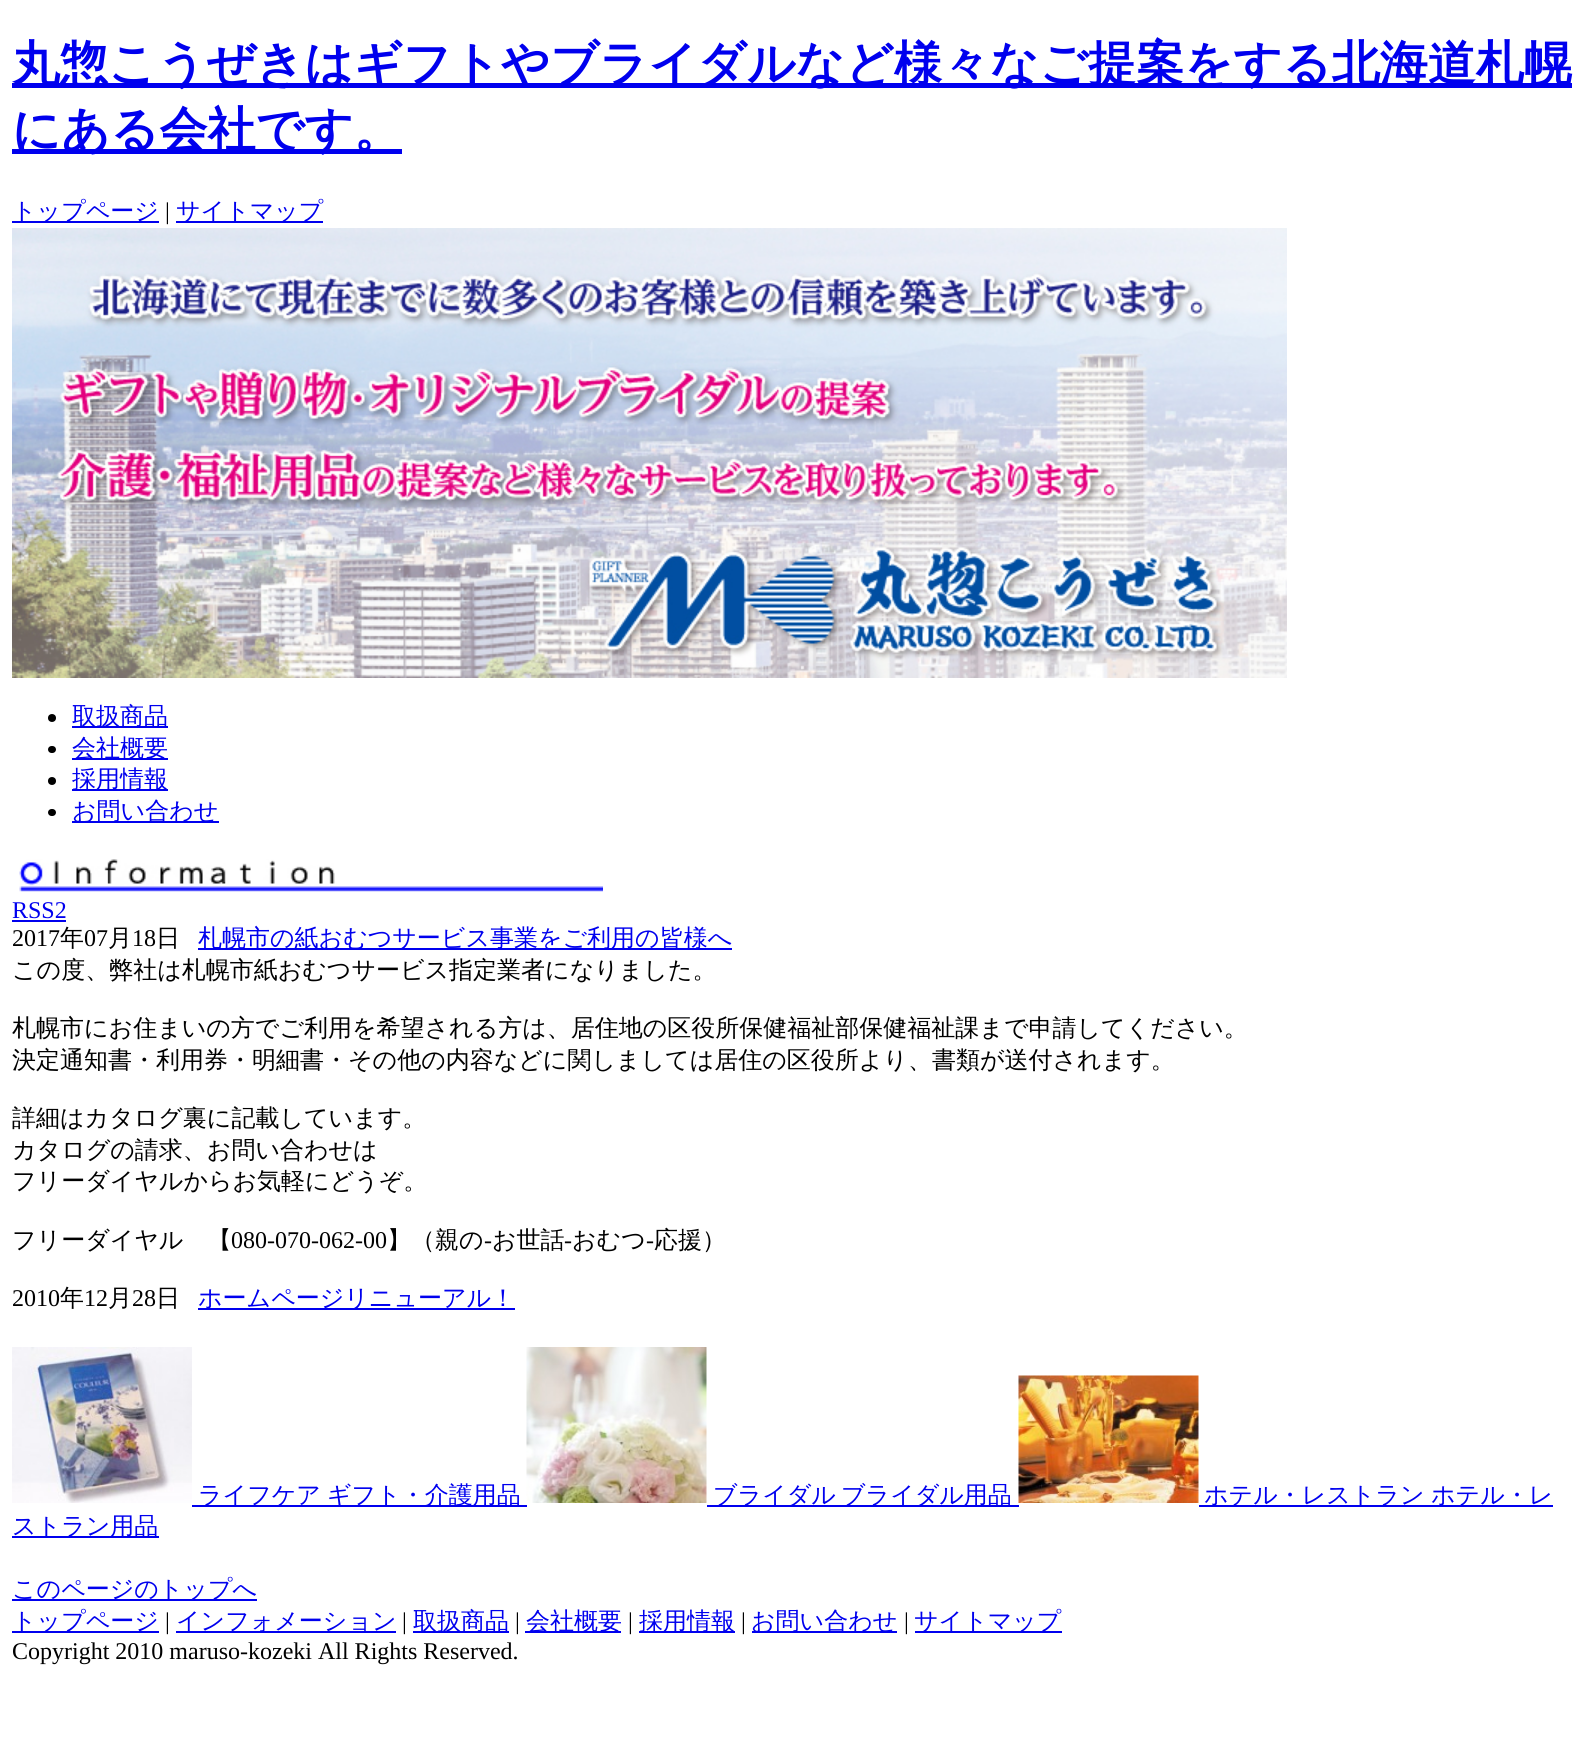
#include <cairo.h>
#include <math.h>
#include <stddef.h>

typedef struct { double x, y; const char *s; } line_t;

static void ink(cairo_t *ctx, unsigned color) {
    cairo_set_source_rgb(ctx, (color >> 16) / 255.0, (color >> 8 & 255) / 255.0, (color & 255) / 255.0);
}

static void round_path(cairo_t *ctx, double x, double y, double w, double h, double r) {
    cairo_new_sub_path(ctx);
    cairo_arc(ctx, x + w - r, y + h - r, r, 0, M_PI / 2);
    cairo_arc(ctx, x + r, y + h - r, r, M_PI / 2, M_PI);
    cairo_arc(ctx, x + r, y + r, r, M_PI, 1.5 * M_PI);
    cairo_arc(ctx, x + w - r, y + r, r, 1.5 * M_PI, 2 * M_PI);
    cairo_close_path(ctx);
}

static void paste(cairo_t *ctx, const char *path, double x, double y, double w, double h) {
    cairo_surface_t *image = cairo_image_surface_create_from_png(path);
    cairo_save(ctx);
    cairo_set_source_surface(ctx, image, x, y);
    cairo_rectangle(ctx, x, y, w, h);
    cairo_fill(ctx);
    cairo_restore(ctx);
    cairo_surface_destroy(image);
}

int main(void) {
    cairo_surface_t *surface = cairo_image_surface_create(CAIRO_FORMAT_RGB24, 1585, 1750);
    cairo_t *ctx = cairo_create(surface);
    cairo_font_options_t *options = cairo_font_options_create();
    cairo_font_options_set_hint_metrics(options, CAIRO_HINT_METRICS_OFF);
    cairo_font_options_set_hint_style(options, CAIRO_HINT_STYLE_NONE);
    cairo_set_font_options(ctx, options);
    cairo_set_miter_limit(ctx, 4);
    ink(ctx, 0xFFFFFF);
    cairo_paint(ctx);
    ink(ctx, 0x0000EE);
    cairo_rectangle(ctx, 12, 83, 1560, 5);
    cairo_fill(ctx);
    cairo_select_font_face(ctx, "WenQuanYi Zen Hei", CAIRO_FONT_SLANT_NORMAL, CAIRO_FONT_WEIGHT_BOLD);
    cairo_set_font_size(ctx, 48);
    cairo_move_to(ctx, 12, 80);
    cairo_show_text(ctx, "丸惣こうぜきはギフトやブライダルなど様々なご提案をする北海道札幌");
    cairo_rectangle(ctx, 12, 149, 390, 5);
    cairo_fill(ctx);
    cairo_move_to(ctx, 12, 146);
    cairo_show_text(ctx, "にある会社です。");
    cairo_rectangle(ctx, 12, 221, 147, 2);
    cairo_fill(ctx);
    cairo_select_font_face(ctx, "WenQuanYi Zen Hei Medium", CAIRO_FONT_SLANT_NORMAL, CAIRO_FONT_WEIGHT_NORMAL);
    cairo_set_font_size(ctx, 24);
    cairo_move_to(ctx, 12, 219);
    cairo_show_text(ctx, "トップページ");
    cairo_select_font_face(ctx, "Liberation Serif", CAIRO_FONT_SLANT_NORMAL, CAIRO_FONT_WEIGHT_NORMAL);
    ink(ctx, 0x000000);
    cairo_move_to(ctx, 165, 219);
    cairo_show_text(ctx, "|");
    ink(ctx, 0x0000EE);
    cairo_rectangle(ctx, 176, 221, 147, 2);
    cairo_fill(ctx);
    cairo_select_font_face(ctx, "WenQuanYi Zen Hei Medium", CAIRO_FONT_SLANT_NORMAL, CAIRO_FONT_WEIGHT_NORMAL);
    cairo_move_to(ctx, 176, 219);
    cairo_show_text(ctx, "サイトマップ");
    paste(ctx, "media/1.png", 12, 228, 1275, 450);
    ink(ctx, 0x000000);
    cairo_arc(ctx, 52, 718, 4, 0, 2 * M_PI);
    cairo_fill(ctx);
    ink(ctx, 0x0000EE);
    cairo_rectangle(ctx, 72, 726, 96, 2);
    cairo_fill(ctx);
    cairo_move_to(ctx, 72, 724);
    cairo_show_text(ctx, "取扱商品");
    ink(ctx, 0x000000);
    round_path(ctx, 48, 746, 8, 7, 3.5);
    cairo_fill(ctx);
    ink(ctx, 0x0000EE);
    cairo_rectangle(ctx, 72, 758, 96, 2);
    cairo_fill(ctx);
    cairo_move_to(ctx, 72, 756);
    cairo_show_text(ctx, "会社概要");
    ink(ctx, 0x000000);
    cairo_new_path(ctx);
    cairo_arc(ctx, 52, 781, 4, 0, 2 * M_PI);
    cairo_fill(ctx);
    ink(ctx, 0x0000EE);
    cairo_rectangle(ctx, 72, 789, 96, 2);
    cairo_fill(ctx);
    cairo_move_to(ctx, 72, 787);
    cairo_show_text(ctx, "採用情報");
    ink(ctx, 0x000000);
    round_path(ctx, 48, 809, 8, 7, 3.5);
    cairo_fill(ctx);
    ink(ctx, 0x0000EE);
    cairo_rectangle(ctx, 72, 821, 147, 2);
    cairo_fill(ctx);
    cairo_move_to(ctx, 72, 819);
    cairo_show_text(ctx, "お問い合わせ");
    paste(ctx, "media/2.png", 19, 859, 584, 33);
    cairo_select_font_face(ctx, "Liberation Serif", CAIRO_FONT_SLANT_NORMAL, CAIRO_FONT_WEIGHT_NORMAL);
    cairo_move_to(ctx, 12, 918);
    cairo_show_text(ctx, "RSS2");
    cairo_rectangle(ctx, 12, 920, 54, 2);
    cairo_fill(ctx);
    ink(ctx, 0x000000);
    cairo_move_to(ctx, 12, 946);
    cairo_show_text(ctx, "2017");
    cairo_select_font_face(ctx, "WenQuanYi Zen Hei Medium", CAIRO_FONT_SLANT_NORMAL, CAIRO_FONT_WEIGHT_NORMAL);
    cairo_move_to(ctx, 60, 946);
    cairo_show_text(ctx, "年");
    cairo_select_font_face(ctx, "Liberation Serif", CAIRO_FONT_SLANT_NORMAL, CAIRO_FONT_WEIGHT_NORMAL);
    cairo_move_to(ctx, 84, 946);
    cairo_show_text(ctx, "07");
    cairo_select_font_face(ctx, "WenQuanYi Zen Hei Medium", CAIRO_FONT_SLANT_NORMAL, CAIRO_FONT_WEIGHT_NORMAL);
    cairo_move_to(ctx, 108, 946);
    cairo_show_text(ctx, "月");
    cairo_select_font_face(ctx, "Liberation Serif", CAIRO_FONT_SLANT_NORMAL, CAIRO_FONT_WEIGHT_NORMAL);
    cairo_move_to(ctx, 132, 946);
    cairo_show_text(ctx, "18");
    cairo_select_font_face(ctx, "WenQuanYi Zen Hei Medium", CAIRO_FONT_SLANT_NORMAL, CAIRO_FONT_WEIGHT_NORMAL);
    cairo_move_to(ctx, 156, 946);
    cairo_show_text(ctx, "日");
    ink(ctx, 0x0000EE);
    cairo_rectangle(ctx, 198, 948, 534, 2);
    cairo_fill(ctx);
    cairo_move_to(ctx, 198, 946);
    cairo_show_text(ctx, "札幌市の紙おむつサービス事業をご利用の皆様へ");
    ink(ctx, 0x000000);
    {
        static const line_t items[] = {
            {12, 978, "この度、弊社は札幌市紙おむつサービス指定業者になりました。"},
            {12, 1036, "札幌市にお住まいの方でご利用を希望される方は、居住地の区役所保健福祉部保健福祉課まで申請してください。"},
            {12, 1068, "決定通知書・利用券・明細書・その他の内容などに関しましては居住の区役所より、書類が送付されます。"},
            {12, 1126, "詳細はカタログ裏に記載しています。"},
            {12, 1158, "カタログの請求、お問い合わせは"},
            {12, 1189, "フリーダイヤルからお気軽にどうぞ。"},
            {12, 1248, "フリーダイヤル　【"},
        };
        for (size_t i = 0; i < sizeof items / sizeof *items; i++) {
            cairo_move_to(ctx, items[i].x, items[i].y);
            cairo_show_text(ctx, items[i].s);
        }
    }
    cairo_select_font_face(ctx, "Liberation Serif", CAIRO_FONT_SLANT_NORMAL, CAIRO_FONT_WEIGHT_NORMAL);
    cairo_move_to(ctx, 231, 1248);
    cairo_show_text(ctx, "080-070-062-00");
    cairo_select_font_face(ctx, "WenQuanYi Zen Hei Medium", CAIRO_FONT_SLANT_NORMAL, CAIRO_FONT_WEIGHT_NORMAL);
    cairo_move_to(ctx, 387, 1248);
    cairo_show_text(ctx, "】（親の");
    cairo_select_font_face(ctx, "Liberation Serif", CAIRO_FONT_SLANT_NORMAL, CAIRO_FONT_WEIGHT_NORMAL);
    cairo_move_to(ctx, 484, 1248);
    cairo_show_text(ctx, "-");
    cairo_select_font_face(ctx, "WenQuanYi Zen Hei Medium", CAIRO_FONT_SLANT_NORMAL, CAIRO_FONT_WEIGHT_NORMAL);
    cairo_move_to(ctx, 492, 1248);
    cairo_show_text(ctx, "お世話");
    cairo_select_font_face(ctx, "Liberation Serif", CAIRO_FONT_SLANT_NORMAL, CAIRO_FONT_WEIGHT_NORMAL);
    cairo_move_to(ctx, 564, 1248);
    cairo_show_text(ctx, "-");
    cairo_select_font_face(ctx, "WenQuanYi Zen Hei Medium", CAIRO_FONT_SLANT_NORMAL, CAIRO_FONT_WEIGHT_NORMAL);
    cairo_move_to(ctx, 572, 1248);
    cairo_show_text(ctx, "おむつ");
    cairo_select_font_face(ctx, "Liberation Serif", CAIRO_FONT_SLANT_NORMAL, CAIRO_FONT_WEIGHT_NORMAL);
    cairo_move_to(ctx, 646, 1248);
    cairo_show_text(ctx, "-");
    cairo_select_font_face(ctx, "WenQuanYi Zen Hei Medium", CAIRO_FONT_SLANT_NORMAL, CAIRO_FONT_WEIGHT_NORMAL);
    cairo_move_to(ctx, 654, 1248);
    cairo_show_text(ctx, "応援）");
    cairo_select_font_face(ctx, "Liberation Serif", CAIRO_FONT_SLANT_NORMAL, CAIRO_FONT_WEIGHT_NORMAL);
    cairo_move_to(ctx, 12, 1306);
    cairo_show_text(ctx, "2010");
    cairo_select_font_face(ctx, "WenQuanYi Zen Hei Medium", CAIRO_FONT_SLANT_NORMAL, CAIRO_FONT_WEIGHT_NORMAL);
    cairo_move_to(ctx, 60, 1306);
    cairo_show_text(ctx, "年");
    cairo_select_font_face(ctx, "Liberation Serif", CAIRO_FONT_SLANT_NORMAL, CAIRO_FONT_WEIGHT_NORMAL);
    cairo_move_to(ctx, 84, 1306);
    cairo_show_text(ctx, "12");
    cairo_select_font_face(ctx, "WenQuanYi Zen Hei Medium", CAIRO_FONT_SLANT_NORMAL, CAIRO_FONT_WEIGHT_NORMAL);
    cairo_move_to(ctx, 108, 1306);
    cairo_show_text(ctx, "月");
    cairo_select_font_face(ctx, "Liberation Serif", CAIRO_FONT_SLANT_NORMAL, CAIRO_FONT_WEIGHT_NORMAL);
    cairo_move_to(ctx, 132, 1306);
    cairo_show_text(ctx, "28");
    cairo_select_font_face(ctx, "WenQuanYi Zen Hei Medium", CAIRO_FONT_SLANT_NORMAL, CAIRO_FONT_WEIGHT_NORMAL);
    cairo_move_to(ctx, 156, 1306);
    cairo_show_text(ctx, "日");
    ink(ctx, 0x0000EE);
    cairo_rectangle(ctx, 198, 1308, 317, 2);
    cairo_fill(ctx);
    cairo_move_to(ctx, 198, 1306);
    cairo_show_text(ctx, "ホームページリニューアル！");
    paste(ctx, "media/3.png", 12, 1347, 180, 156);
    cairo_rectangle(ctx, 192, 1505, 335, 2);
    cairo_fill(ctx);
    cairo_move_to(ctx, 198, 1503);
    cairo_show_text(ctx, "ライフケア");
    cairo_move_to(ctx, 327, 1503);
    cairo_show_text(ctx, "ギフト・介護用品");
    paste(ctx, "media/4.png", 526, 1347, 181, 156);
    cairo_rectangle(ctx, 707, 1505, 312, 2);
    cairo_fill(ctx);
    cairo_move_to(ctx, 713, 1503);
    cairo_show_text(ctx, "ブライダル");
    cairo_move_to(ctx, 841, 1503);
    cairo_show_text(ctx, "ブライダル用品");
    paste(ctx, "media/5.png", 1018, 1375, 181, 128);
    cairo_rectangle(ctx, 1199, 1505, 354, 2);
    cairo_fill(ctx);
    cairo_move_to(ctx, 1204, 1503);
    cairo_show_text(ctx, "ホテル・レストラン");
    cairo_move_to(ctx, 1431, 1503);
    cairo_show_text(ctx, "ホテル・レ");
    cairo_rectangle(ctx, 12, 1536, 147, 2);
    cairo_fill(ctx);
    cairo_move_to(ctx, 12, 1534);
    cairo_show_text(ctx, "ストラン用品");
    cairo_rectangle(ctx, 12, 1599, 245, 2);
    cairo_fill(ctx);
    cairo_move_to(ctx, 12, 1597);
    cairo_show_text(ctx, "このページのトップへ");
    cairo_rectangle(ctx, 12, 1631, 147, 2);
    cairo_fill(ctx);
    cairo_move_to(ctx, 12, 1629);
    cairo_show_text(ctx, "トップページ");
    cairo_select_font_face(ctx, "Liberation Serif", CAIRO_FONT_SLANT_NORMAL, CAIRO_FONT_WEIGHT_NORMAL);
    ink(ctx, 0x000000);
    cairo_move_to(ctx, 165, 1629);
    cairo_show_text(ctx, "|");
    ink(ctx, 0x0000EE);
    cairo_rectangle(ctx, 176, 1631, 220, 2);
    cairo_fill(ctx);
    cairo_select_font_face(ctx, "WenQuanYi Zen Hei Medium", CAIRO_FONT_SLANT_NORMAL, CAIRO_FONT_WEIGHT_NORMAL);
    cairo_move_to(ctx, 176, 1629);
    cairo_show_text(ctx, "インフォメーション");
    cairo_select_font_face(ctx, "Liberation Serif", CAIRO_FONT_SLANT_NORMAL, CAIRO_FONT_WEIGHT_NORMAL);
    ink(ctx, 0x000000);
    cairo_move_to(ctx, 402, 1629);
    cairo_show_text(ctx, "|");
    ink(ctx, 0x0000EE);
    cairo_rectangle(ctx, 413, 1631, 96, 2);
    cairo_fill(ctx);
    cairo_select_font_face(ctx, "WenQuanYi Zen Hei Medium", CAIRO_FONT_SLANT_NORMAL, CAIRO_FONT_WEIGHT_NORMAL);
    cairo_move_to(ctx, 413, 1629);
    cairo_show_text(ctx, "取扱商品");
    cairo_select_font_face(ctx, "Liberation Serif", CAIRO_FONT_SLANT_NORMAL, CAIRO_FONT_WEIGHT_NORMAL);
    ink(ctx, 0x000000);
    cairo_move_to(ctx, 515, 1629);
    cairo_show_text(ctx, "|");
    ink(ctx, 0x0000EE);
    cairo_rectangle(ctx, 525, 1631, 96, 2);
    cairo_fill(ctx);
    cairo_select_font_face(ctx, "WenQuanYi Zen Hei Medium", CAIRO_FONT_SLANT_NORMAL, CAIRO_FONT_WEIGHT_NORMAL);
    cairo_move_to(ctx, 526, 1629);
    cairo_show_text(ctx, "会社概要");
    cairo_select_font_face(ctx, "Liberation Serif", CAIRO_FONT_SLANT_NORMAL, CAIRO_FONT_WEIGHT_NORMAL);
    ink(ctx, 0x000000);
    cairo_move_to(ctx, 628, 1629);
    cairo_show_text(ctx, "|");
    ink(ctx, 0x0000EE);
    cairo_rectangle(ctx, 639, 1631, 96, 2);
    cairo_fill(ctx);
    cairo_select_font_face(ctx, "WenQuanYi Zen Hei Medium", CAIRO_FONT_SLANT_NORMAL, CAIRO_FONT_WEIGHT_NORMAL);
    cairo_move_to(ctx, 639, 1629);
    cairo_show_text(ctx, "採用情報");
    cairo_select_font_face(ctx, "Liberation Serif", CAIRO_FONT_SLANT_NORMAL, CAIRO_FONT_WEIGHT_NORMAL);
    ink(ctx, 0x000000);
    cairo_move_to(ctx, 741, 1629);
    cairo_show_text(ctx, "|");
    ink(ctx, 0x0000EE);
    cairo_rectangle(ctx, 752, 1631, 145, 2);
    cairo_fill(ctx);
    cairo_select_font_face(ctx, "WenQuanYi Zen Hei Medium", CAIRO_FONT_SLANT_NORMAL, CAIRO_FONT_WEIGHT_NORMAL);
    cairo_move_to(ctx, 751, 1629);
    cairo_show_text(ctx, "お問い合わせ");
    cairo_select_font_face(ctx, "Liberation Serif", CAIRO_FONT_SLANT_NORMAL, CAIRO_FONT_WEIGHT_NORMAL);
    ink(ctx, 0x000000);
    cairo_move_to(ctx, 904, 1629);
    cairo_show_text(ctx, "|");
    ink(ctx, 0x0000EE);
    cairo_rectangle(ctx, 915, 1631, 147, 2);
    cairo_fill(ctx);
    cairo_select_font_face(ctx, "WenQuanYi Zen Hei Medium", CAIRO_FONT_SLANT_NORMAL, CAIRO_FONT_WEIGHT_NORMAL);
    cairo_move_to(ctx, 914, 1629);
    cairo_show_text(ctx, "サイトマップ");
    cairo_select_font_face(ctx, "Liberation Serif", CAIRO_FONT_SLANT_NORMAL, CAIRO_FONT_WEIGHT_NORMAL);
    ink(ctx, 0x000000);
    cairo_move_to(ctx, 12, 1659);
    cairo_show_text(ctx, "Copyright 2010 maruso-kozeki All Rights Reserved.");
    cairo_surface_write_to_png(surface, "image.png");
    cairo_font_options_destroy(options);
    cairo_destroy(ctx);
    cairo_surface_destroy(surface);
    return 0;
}
